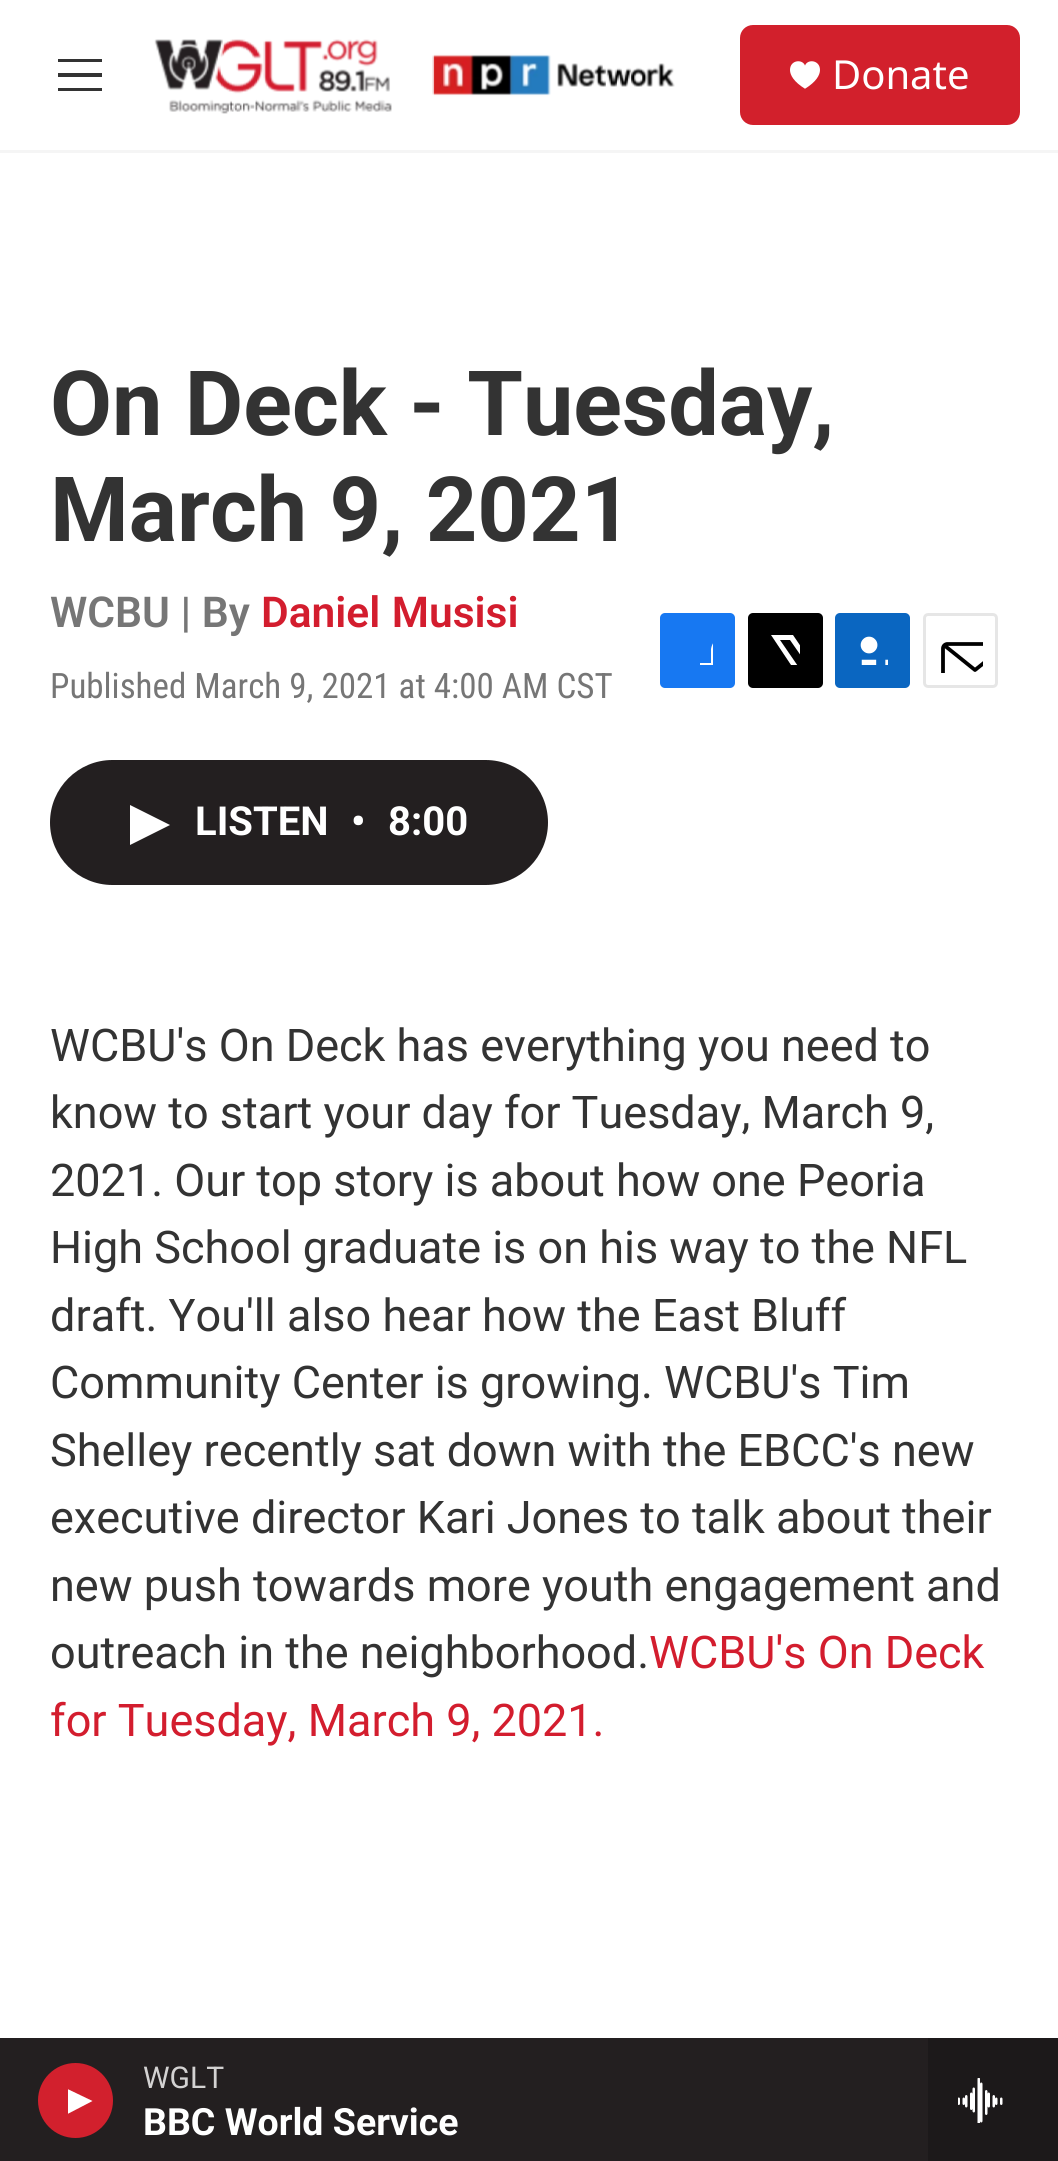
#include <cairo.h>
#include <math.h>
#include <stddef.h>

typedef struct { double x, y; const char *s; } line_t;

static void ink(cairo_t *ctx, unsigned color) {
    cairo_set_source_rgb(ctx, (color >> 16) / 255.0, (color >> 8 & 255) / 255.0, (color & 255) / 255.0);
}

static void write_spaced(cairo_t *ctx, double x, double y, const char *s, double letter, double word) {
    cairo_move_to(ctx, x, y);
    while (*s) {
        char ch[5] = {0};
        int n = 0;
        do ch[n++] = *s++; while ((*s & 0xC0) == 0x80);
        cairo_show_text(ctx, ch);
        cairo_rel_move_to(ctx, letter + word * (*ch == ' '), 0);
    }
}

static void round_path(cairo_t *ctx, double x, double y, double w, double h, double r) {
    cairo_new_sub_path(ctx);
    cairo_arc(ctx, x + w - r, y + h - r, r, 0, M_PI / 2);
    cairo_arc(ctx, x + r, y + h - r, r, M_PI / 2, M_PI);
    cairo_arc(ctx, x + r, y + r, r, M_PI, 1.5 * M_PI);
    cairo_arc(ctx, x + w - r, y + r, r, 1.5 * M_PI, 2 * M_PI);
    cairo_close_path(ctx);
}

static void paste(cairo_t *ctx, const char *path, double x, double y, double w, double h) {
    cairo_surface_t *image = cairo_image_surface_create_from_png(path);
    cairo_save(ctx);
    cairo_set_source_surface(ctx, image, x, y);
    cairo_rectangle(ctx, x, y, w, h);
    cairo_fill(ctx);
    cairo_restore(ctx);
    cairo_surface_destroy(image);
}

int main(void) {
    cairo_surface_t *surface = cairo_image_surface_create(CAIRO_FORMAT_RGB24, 1058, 2161);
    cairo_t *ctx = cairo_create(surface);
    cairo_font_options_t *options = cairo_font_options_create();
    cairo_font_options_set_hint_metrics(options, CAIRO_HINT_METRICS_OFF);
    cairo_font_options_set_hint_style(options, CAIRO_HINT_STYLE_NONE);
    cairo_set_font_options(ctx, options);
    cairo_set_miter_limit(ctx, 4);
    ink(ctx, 0xFFFFFF);
    cairo_paint(ctx);
    ink(ctx, 0xF5F5F5);
    cairo_rectangle(ctx, 0, 150, 1058, 3);
    cairo_fill(ctx);
    ink(ctx, 0x333333);
    cairo_set_fill_rule(ctx, CAIRO_FILL_RULE_EVEN_ODD);
    cairo_new_path(ctx);
    cairo_move_to(ctx, 58, 77);
    cairo_line_to(ctx, 58, 73);
    cairo_line_to(ctx, 102, 73);
    cairo_line_to(ctx, 102, 77);
    cairo_close_path(ctx);
    cairo_move_to(ctx, 58, 62);
    cairo_line_to(ctx, 58, 59);
    cairo_line_to(ctx, 102, 59);
    cairo_line_to(ctx, 102, 62);
    cairo_close_path(ctx);
    cairo_move_to(ctx, 58, 91);
    cairo_line_to(ctx, 58, 88);
    cairo_line_to(ctx, 102, 88);
    cairo_line_to(ctx, 102, 91);
    cairo_close_path(ctx);
    cairo_fill(ctx);
    paste(ctx, "media/1.png", 154, 39, 521, 75);
    ink(ctx, 0xD2202C);
    round_path(ctx, 740, 25, 280, 100, 13);
    cairo_fill(ctx);
    paste(ctx, "media/2.png", 790, 61, 30, 28);
    cairo_select_font_face(ctx, "Noto Sans", CAIRO_FONT_SLANT_NORMAL, CAIRO_FONT_WEIGHT_NORMAL);
    cairo_set_font_size(ctx, 40);
    ink(ctx, 0xFFFFFF);
    cairo_move_to(ctx, 832, 89);
    cairo_show_text(ctx, "Donate");
    ink(ctx, 0x231F20);
    cairo_rectangle(ctx, 0, 2038, 928, 123);
    cairo_fill(ctx);
    ink(ctx, 0xD2202D);
    cairo_arc(ctx, 75.5, 2100.5, 37.5, 0, 2 * M_PI);
    cairo_fill(ctx);
    cairo_save(ctx);
    cairo_set_fill_rule(ctx, CAIRO_FILL_RULE_WINDING);
    cairo_rectangle(ctx, 68, 2088, 25, 27);
    cairo_clip(ctx);
    ink(ctx, 0xFFFFFF);
    cairo_new_path(ctx);
    cairo_move_to(ctx, 67.5, 2089);
    cairo_line_to(ctx, 92.5, 2101);
    cairo_line_to(ctx, 67.5, 2114);
    cairo_close_path(ctx);
    cairo_fill(ctx);
    cairo_restore(ctx);
    cairo_select_font_face(ctx, "Roboto", CAIRO_FONT_SLANT_NORMAL, CAIRO_FONT_WEIGHT_NORMAL);
    cairo_set_font_size(ctx, 30);
    ink(ctx, 0xD3D2D2);
    cairo_move_to(ctx, 143, 2088);
    cairo_show_text(ctx, "WGLT");
    cairo_select_font_face(ctx, "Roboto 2", CAIRO_FONT_SLANT_NORMAL, CAIRO_FONT_WEIGHT_BOLD);
    cairo_set_font_size(ctx, 37.5);
    ink(ctx, 0xFFFFFF);
    cairo_move_to(ctx, 143, 2135);
    cairo_show_text(ctx, "BBC World Service");
    ink(ctx, 0x1C191A);
    cairo_rectangle(ctx, 928, 2038, 130, 123);
    cairo_fill(ctx);
    paste(ctx, "media/3.png", 958, 2078, 45, 45);
    cairo_select_font_face(ctx, "Roboto", CAIRO_FONT_SLANT_NORMAL, CAIRO_FONT_WEIGHT_BOLD);
    cairo_set_font_size(ctx, 90);
    ink(ctx, 0x333333);
    cairo_move_to(ctx, 50, 435);
    cairo_show_text(ctx, "On Deck - Tuesday,");
    cairo_move_to(ctx, 50, 541);
    cairo_show_text(ctx, "March 9, 2021");
    cairo_select_font_face(ctx, "Roboto SemiBold", CAIRO_FONT_SLANT_NORMAL, CAIRO_FONT_WEIGHT_NORMAL);
    cairo_set_font_size(ctx, 42.5);
    ink(ctx, 0x767676);
    cairo_move_to(ctx, 50, 627);
    cairo_show_text(ctx, "WCBU | By");
    ink(ctx, 0xD31D2E);
    write_spaced(ctx, 261, 627, "Daniel Musisi", 0, 1);
    cairo_select_font_face(ctx, "Roboto Condensed", CAIRO_FONT_SLANT_NORMAL, CAIRO_FONT_WEIGHT_NORMAL);
    cairo_set_font_size(ctx, 35);
    ink(ctx, 0x767676);
    cairo_move_to(ctx, 50, 698);
    cairo_show_text(ctx, "Published March 9, 2021 at 4:00 AM CST");
    ink(ctx, 0x1778F2);
    round_path(ctx, 660, 613, 75, 75, 5);
    cairo_fill(ctx);
    cairo_save(ctx);
    cairo_set_fill_rule(ctx, CAIRO_FILL_RULE_WINDING);
    cairo_rectangle(ctx, 683, 635, 30, 30);
    cairo_clip(ctx);
    ink(ctx, 0xFFFFFF);
    cairo_new_path(ctx);
    cairo_move_to(ctx, 724, 688);
    cairo_line_to(ctx, 711, 688);
    cairo_line_to(ctx, 711, 675);
    cairo_line_to(ctx, 700, 675);
    cairo_line_to(ctx, 700, 663);
    cairo_line_to(ctx, 711, 663);
    cairo_line_to(ctx, 711, 649);
    cairo_curve_to(ctx, 713, 637, 724, 635, 735, 637);
    cairo_line_to(ctx, 735, 648);
    cairo_curve_to(ctx, 721, 648, 724, 652, 724, 663);
    cairo_line_to(ctx, 735, 663);
    cairo_line_to(ctx, 735, 669);
    cairo_line_to(ctx, 734, 675);
    cairo_line_to(ctx, 724, 675);
    cairo_close_path(ctx);
    cairo_fill(ctx);
    cairo_restore(ctx);
    ink(ctx, 0x000000);
    round_path(ctx, 748, 613, 75, 75, 5);
    cairo_fill(ctx);
    cairo_save(ctx);
    cairo_set_fill_rule(ctx, CAIRO_FILL_RULE_WINDING);
    cairo_rectangle(ctx, 770, 635, 30, 30);
    cairo_clip(ctx);
    ink(ctx, 0xFFFFFF);
    cairo_new_path(ctx);
    cairo_move_to(ctx, 814, 667);
    cairo_line_to(ctx, 823, 680);
    cairo_curve_to(ctx, 823, 682, 823, 684, 822, 686);
    cairo_line_to(ctx, 790, 640);
    cairo_line_to(ctx, 780, 640);
    cairo_line_to(ctx, 813, 688);
    cairo_line_to(ctx, 807, 688);
    cairo_line_to(ctx, 802, 681);
    cairo_line_to(ctx, 796, 688);
    cairo_line_to(ctx, 790, 688);
    cairo_line_to(ctx, 799, 677);
    cairo_line_to(ctx, 771, 635);
    cairo_line_to(ctx, 793, 635);
    cairo_line_to(ctx, 812, 663);
    cairo_line_to(ctx, 823, 650);
    cairo_line_to(ctx, 823, 657);
    cairo_close_path(ctx);
    cairo_fill(ctx);
    cairo_restore(ctx);
    ink(ctx, 0x0A66C1);
    round_path(ctx, 835, 613, 75, 75, 5);
    cairo_fill(ctx);
    paste(ctx, "media/4.png", 860, 636, 28, 29);
    round_path(ctx, 924.5, 614.5, 72, 72, 3.5);
    ink(ctx, 0xE6E6E6);
    cairo_set_line_width(ctx, 3);
    cairo_stroke(ctx);
    cairo_save(ctx);
    cairo_set_fill_rule(ctx, CAIRO_FILL_RULE_WINDING);
    cairo_rectangle(ctx, 938, 628, 45, 45);
    cairo_clip(ctx);
    cairo_new_path(ctx);
    cairo_move_to(ctx, 1007, 682.5);
    cairo_curve_to(ctx, 1007, 685, 1005, 687, 1002.5, 687);
    cairo_line_to(ctx, 947.5, 687);
    cairo_curve_to(ctx, 945, 687, 943, 685, 943, 682.5);
    cairo_line_to(ctx, 943, 648.5);
    cairo_curve_to(ctx, 943, 646, 945, 644, 947.5, 644);
    cairo_line_to(ctx, 1002.5, 644);
    cairo_curve_to(ctx, 1005, 644, 1007, 646, 1007, 648.5);
    cairo_close_path(ctx);
    cairo_move_to(ctx, 1005.5, 645.5);
    cairo_line_to(ctx, 975, 670);
    cairo_line_to(ctx, 944.5, 645.5);
    ink(ctx, 0x000000);
    cairo_set_line_width(ctx, 3.8);
    cairo_set_line_cap(ctx, CAIRO_LINE_CAP_ROUND);
    cairo_set_line_join(ctx, CAIRO_LINE_JOIN_ROUND);
    cairo_stroke(ctx);
    cairo_restore(ctx);
    ink(ctx, 0x231F20);
    round_path(ctx, 50, 760, 498, 125, 62.5);
    cairo_fill(ctx);
    ink(ctx, 0xFFFFFF);
    cairo_set_fill_rule(ctx, CAIRO_FILL_RULE_WINDING);
    cairo_new_path(ctx);
    cairo_move_to(ctx, 130, 805);
    cairo_line_to(ctx, 170, 825);
    cairo_line_to(ctx, 130, 845);
    cairo_close_path(ctx);
    cairo_fill(ctx);
    cairo_select_font_face(ctx, "Roboto 2", CAIRO_FONT_SLANT_NORMAL, CAIRO_FONT_WEIGHT_BOLD);
    cairo_set_font_size(ctx, 40);
    {
        static const line_t items[] = {
            {195, 835, "LISTEN"},
            {351, 835, "•"},
            {388, 835, "8:00"},
        };
        for (size_t i = 0; i < sizeof items / sizeof *items; i++) {
            cairo_move_to(ctx, items[i].x, items[i].y);
            cairo_show_text(ctx, items[i].s);
        }
    }
    cairo_select_font_face(ctx, "Roboto", CAIRO_FONT_SLANT_NORMAL, CAIRO_FONT_WEIGHT_NORMAL);
    cairo_set_font_size(ctx, 45);
    ink(ctx, 0x333333);
    {
        static const line_t items[] = {
            {50, 1061, "WCBU's On Deck has everything you need to"},
            {50, 1128, "know to start your day for Tuesday, March 9,"},
            {50, 1196, "2021. Our top story is about how one Peoria"},
            {50, 1263, "High School graduate is on his way to the NFL"},
            {50, 1331, "draft. You'll also hear how the East Bluff"},
            {50, 1398, "Community Center is growing. WCBU's Tim"},
            {50, 1466, "Shelley recently sat down with the EBCC's new"},
            {50, 1533, "executive director Kari Jones to talk about their"},
            {50, 1601, "new push towards more youth engagement and"},
            {50, 1668, "outreach in the neighborhood."},
        };
        for (size_t i = 0; i < sizeof items / sizeof *items; i++) {
            cairo_move_to(ctx, items[i].x, items[i].y);
            cairo_show_text(ctx, items[i].s);
        }
    }
    ink(ctx, 0xD31D2E);
    cairo_move_to(ctx, 649, 1668);
    cairo_show_text(ctx, "WCBU's On Deck");
    cairo_move_to(ctx, 50, 1736);
    cairo_show_text(ctx, "for Tuesday, March 9, 2021.");
    cairo_surface_write_to_png(surface, "image.png");
    cairo_font_options_destroy(options);
    cairo_destroy(ctx);
    cairo_surface_destroy(surface);
    return 0;
}
